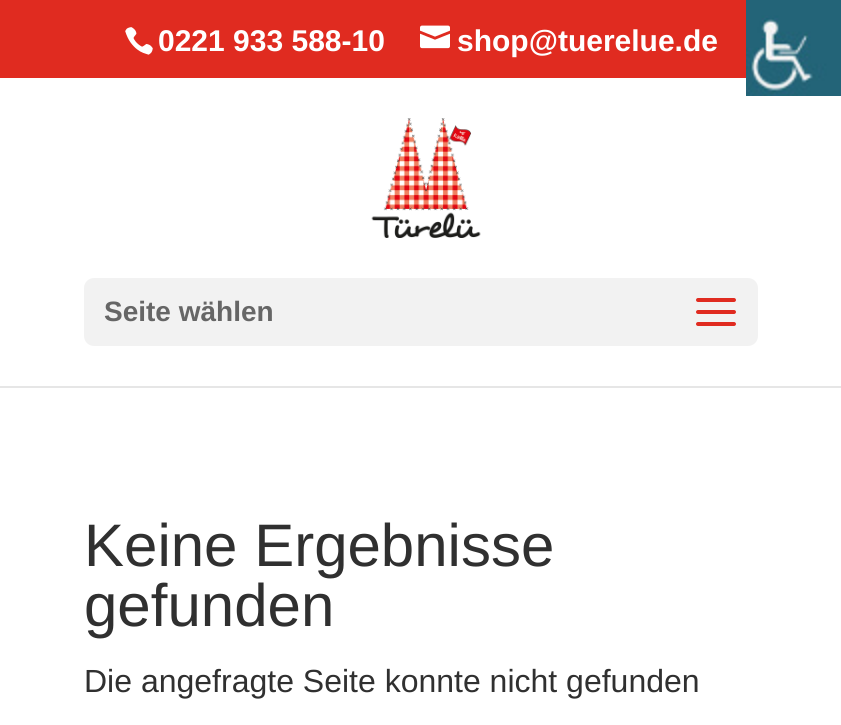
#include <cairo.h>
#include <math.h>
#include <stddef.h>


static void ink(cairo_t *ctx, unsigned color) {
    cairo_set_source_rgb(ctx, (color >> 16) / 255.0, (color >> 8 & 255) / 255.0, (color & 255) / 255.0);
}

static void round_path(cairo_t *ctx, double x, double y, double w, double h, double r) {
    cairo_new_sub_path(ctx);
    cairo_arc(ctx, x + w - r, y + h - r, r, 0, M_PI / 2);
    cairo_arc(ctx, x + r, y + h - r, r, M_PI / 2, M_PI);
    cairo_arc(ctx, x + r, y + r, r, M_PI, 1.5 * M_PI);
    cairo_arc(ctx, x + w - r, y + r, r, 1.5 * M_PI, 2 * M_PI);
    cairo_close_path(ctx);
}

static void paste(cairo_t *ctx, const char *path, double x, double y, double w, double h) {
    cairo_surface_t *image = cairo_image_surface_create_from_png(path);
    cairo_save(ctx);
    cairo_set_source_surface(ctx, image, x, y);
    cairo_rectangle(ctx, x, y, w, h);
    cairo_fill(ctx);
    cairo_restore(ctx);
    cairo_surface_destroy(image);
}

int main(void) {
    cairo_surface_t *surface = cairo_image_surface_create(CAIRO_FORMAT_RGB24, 841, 725);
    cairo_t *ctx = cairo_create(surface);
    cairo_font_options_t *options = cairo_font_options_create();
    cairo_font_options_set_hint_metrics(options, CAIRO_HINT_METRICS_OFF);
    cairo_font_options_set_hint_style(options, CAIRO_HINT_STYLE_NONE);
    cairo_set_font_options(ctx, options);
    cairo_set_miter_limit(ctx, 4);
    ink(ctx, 0xFFFFFF);
    cairo_paint(ctx);
    ink(ctx, 0xE02B20);
    cairo_rectangle(ctx, 0, 0, 746, 78);
    cairo_fill(ctx);
    paste(ctx, "media/1.png", 125, 27, 28, 28);
    cairo_select_font_face(ctx, "Liberation Sans", CAIRO_FONT_SLANT_NORMAL, CAIRO_FONT_WEIGHT_BOLD);
    cairo_set_font_size(ctx, 30);
    ink(ctx, 0xFFFFFF);
    cairo_move_to(ctx, 158, 51);
    cairo_show_text(ctx, "0221 933 588-10");
    paste(ctx, "media/2.png", 420, 25, 30, 24);
    cairo_move_to(ctx, 457, 51);
    cairo_show_text(ctx, "shop@tuerelue.de");
    ink(ctx, 0xE6E6E6);
    cairo_rectangle(ctx, 0, 386, 841, 2);
    cairo_fill(ctx);
    paste(ctx, "media/3.png", 371, 118, 110, 120);
    ink(ctx, 0xF2F2F2);
    round_path(ctx, 84, 278, 674, 68, 10);
    cairo_fill(ctx);
    cairo_set_font_size(ctx, 28);
    ink(ctx, 0x666666);
    cairo_move_to(ctx, 104, 321);
    cairo_show_text(ctx, "Seite wählen");
    paste(ctx, "media/4.png", 696, 298, 40, 28);
    cairo_select_font_face(ctx, "Liberation Sans", CAIRO_FONT_SLANT_NORMAL, CAIRO_FONT_WEIGHT_NORMAL);
    cairo_set_font_size(ctx, 60);
    ink(ctx, 0x303030);
    cairo_move_to(ctx, 84, 566);
    cairo_show_text(ctx, "Keine Ergebnisse");
    cairo_move_to(ctx, 84, 626);
    cairo_show_text(ctx, "gefunden");
    cairo_set_font_size(ctx, 32);
    cairo_move_to(ctx, 84, 692);
    cairo_show_text(ctx, "Die angefragte Seite konnte nicht gefunden");
    paste(ctx, "media/5.png", 746, 0, 95, 96);
    cairo_surface_write_to_png(surface, "image.png");
    cairo_font_options_destroy(options);
    cairo_destroy(ctx);
    cairo_surface_destroy(surface);
    return 0;
}
